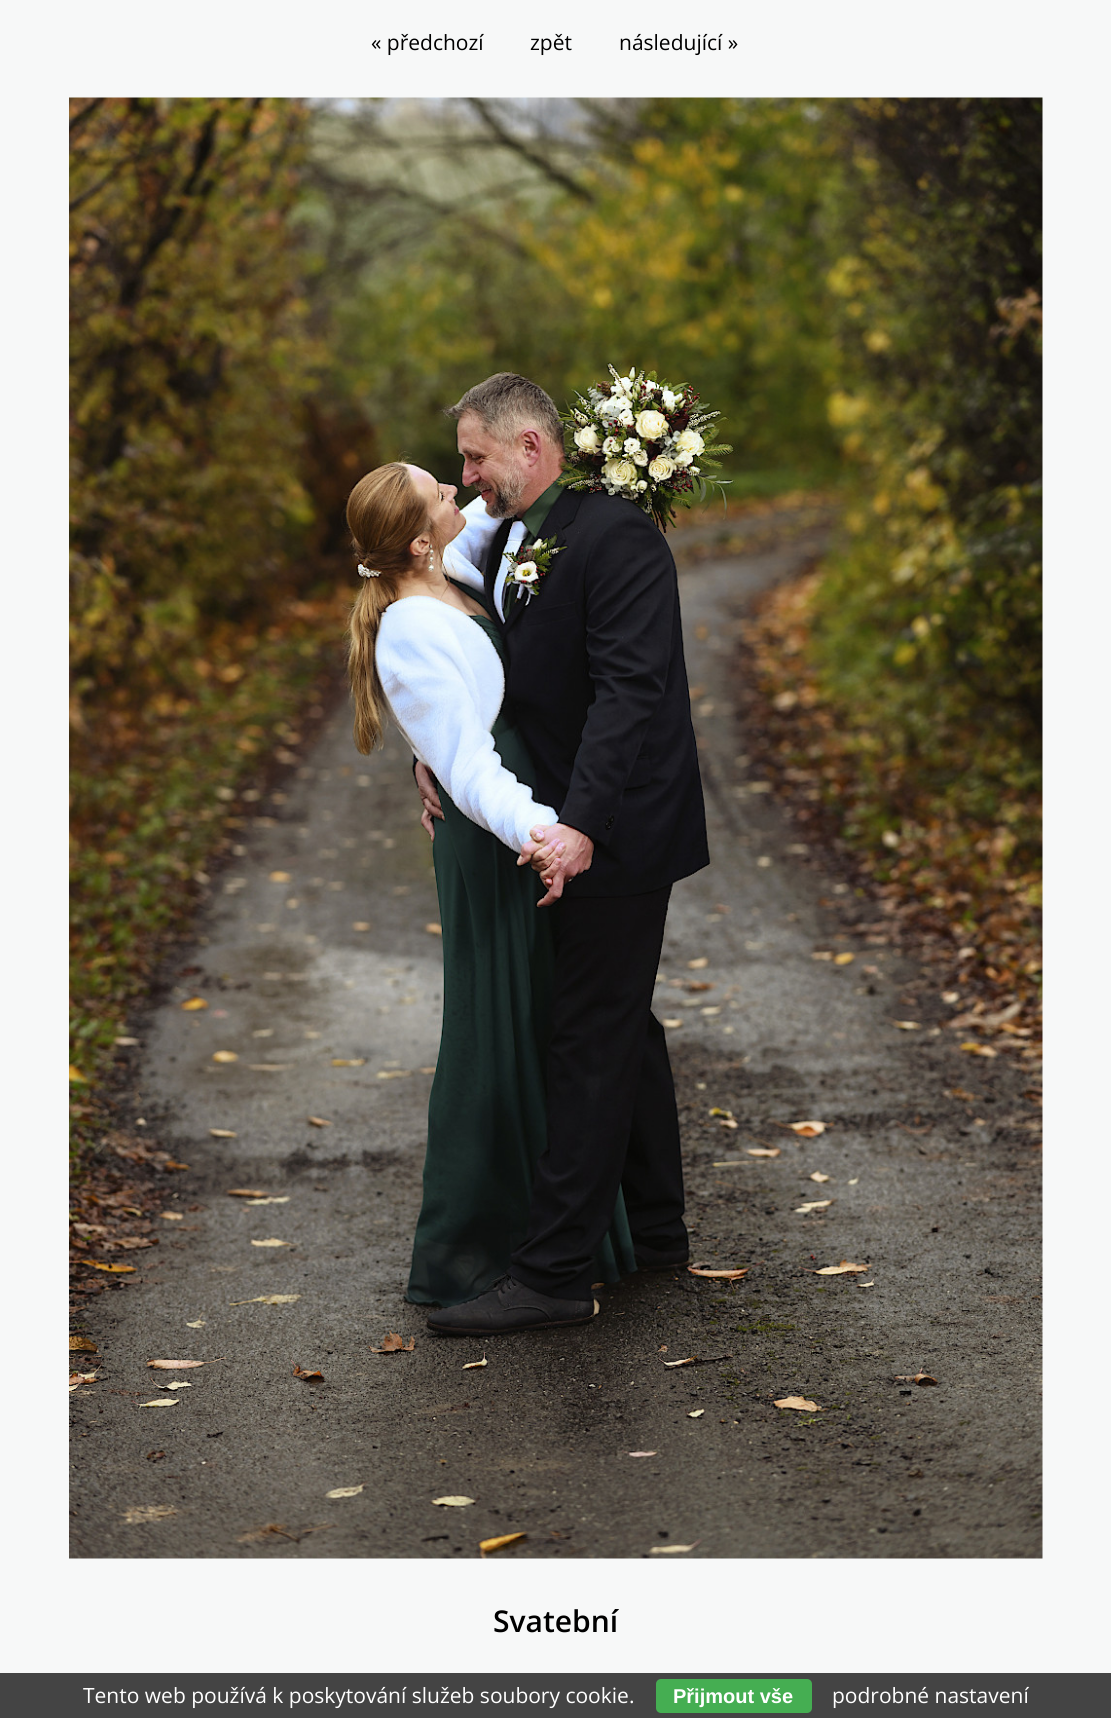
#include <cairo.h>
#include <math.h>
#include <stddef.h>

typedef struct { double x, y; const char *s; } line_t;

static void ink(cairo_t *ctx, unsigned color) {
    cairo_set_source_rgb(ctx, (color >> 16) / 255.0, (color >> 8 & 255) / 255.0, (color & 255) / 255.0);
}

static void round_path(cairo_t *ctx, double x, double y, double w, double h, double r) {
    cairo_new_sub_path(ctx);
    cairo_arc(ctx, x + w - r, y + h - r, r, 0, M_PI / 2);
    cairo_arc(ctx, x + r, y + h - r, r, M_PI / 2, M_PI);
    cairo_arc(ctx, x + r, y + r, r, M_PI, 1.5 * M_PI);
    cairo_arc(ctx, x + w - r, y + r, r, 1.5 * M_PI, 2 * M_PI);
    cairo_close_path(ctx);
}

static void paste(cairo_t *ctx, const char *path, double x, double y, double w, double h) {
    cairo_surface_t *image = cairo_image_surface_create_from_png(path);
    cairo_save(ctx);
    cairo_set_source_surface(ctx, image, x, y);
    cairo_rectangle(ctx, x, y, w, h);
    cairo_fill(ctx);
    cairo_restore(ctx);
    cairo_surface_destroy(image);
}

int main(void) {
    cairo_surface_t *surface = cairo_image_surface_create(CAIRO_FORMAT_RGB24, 1111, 1718);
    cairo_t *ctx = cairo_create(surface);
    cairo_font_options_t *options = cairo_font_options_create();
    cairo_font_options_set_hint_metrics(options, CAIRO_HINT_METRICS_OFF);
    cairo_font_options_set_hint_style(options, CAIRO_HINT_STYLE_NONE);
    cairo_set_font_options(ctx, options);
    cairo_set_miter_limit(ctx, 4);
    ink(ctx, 0xF7F8F8);
    cairo_paint(ctx);
    cairo_select_font_face(ctx, "Open Sans", CAIRO_FONT_SLANT_NORMAL, CAIRO_FONT_WEIGHT_NORMAL);
    cairo_set_font_size(ctx, 21);
    ink(ctx, 0x000000);
    {
        static const line_t items[] = {
            {371, 50, "« předchozí"},
            {530, 50, "zpět"},
            {619, 50, "následující »"},
        };
        for (size_t i = 0; i < sizeof items / sizeof *items; i++) {
            cairo_move_to(ctx, items[i].x, items[i].y);
            cairo_show_text(ctx, items[i].s);
        }
    }
    paste(ctx, "media/1.png", 69, 97, 974, 1462);
    cairo_select_font_face(ctx, "Open Sans SemiBold", CAIRO_FONT_SLANT_NORMAL, CAIRO_FONT_WEIGHT_NORMAL);
    cairo_set_font_size(ctx, 30);
    cairo_move_to(ctx, 493, 1632);
    cairo_show_text(ctx, "Svatební");
    ink(ctx, 0x444444);
    cairo_rectangle(ctx, 0, 1673, 1111, 45);
    cairo_fill(ctx);
    cairo_select_font_face(ctx, "Open Sans", CAIRO_FONT_SLANT_NORMAL, CAIRO_FONT_WEIGHT_NORMAL);
    cairo_set_font_size(ctx, 21);
    ink(ctx, 0xFFFFFF);
    cairo_move_to(ctx, 83, 1703);
    cairo_show_text(ctx, "Tento web používá k poskytování služeb soubory cookie.");
    ink(ctx, 0x45AE52);
    round_path(ctx, 656, 1679, 156, 34, 5);
    cairo_fill(ctx);
    cairo_select_font_face(ctx, "Liberation Sans", CAIRO_FONT_SLANT_NORMAL, CAIRO_FONT_WEIGHT_BOLD);
    cairo_set_font_size(ctx, 20);
    ink(ctx, 0xFFFFFF);
    cairo_move_to(ctx, 673, 1703);
    cairo_show_text(ctx, "Přijmout vše");
    cairo_select_font_face(ctx, "Open Sans", CAIRO_FONT_SLANT_NORMAL, CAIRO_FONT_WEIGHT_NORMAL);
    cairo_set_font_size(ctx, 21);
    cairo_move_to(ctx, 832, 1703);
    cairo_show_text(ctx, "podrobné nastavení");
    cairo_surface_write_to_png(surface, "image.png");
    cairo_font_options_destroy(options);
    cairo_destroy(ctx);
    cairo_surface_destroy(surface);
    return 0;
}
